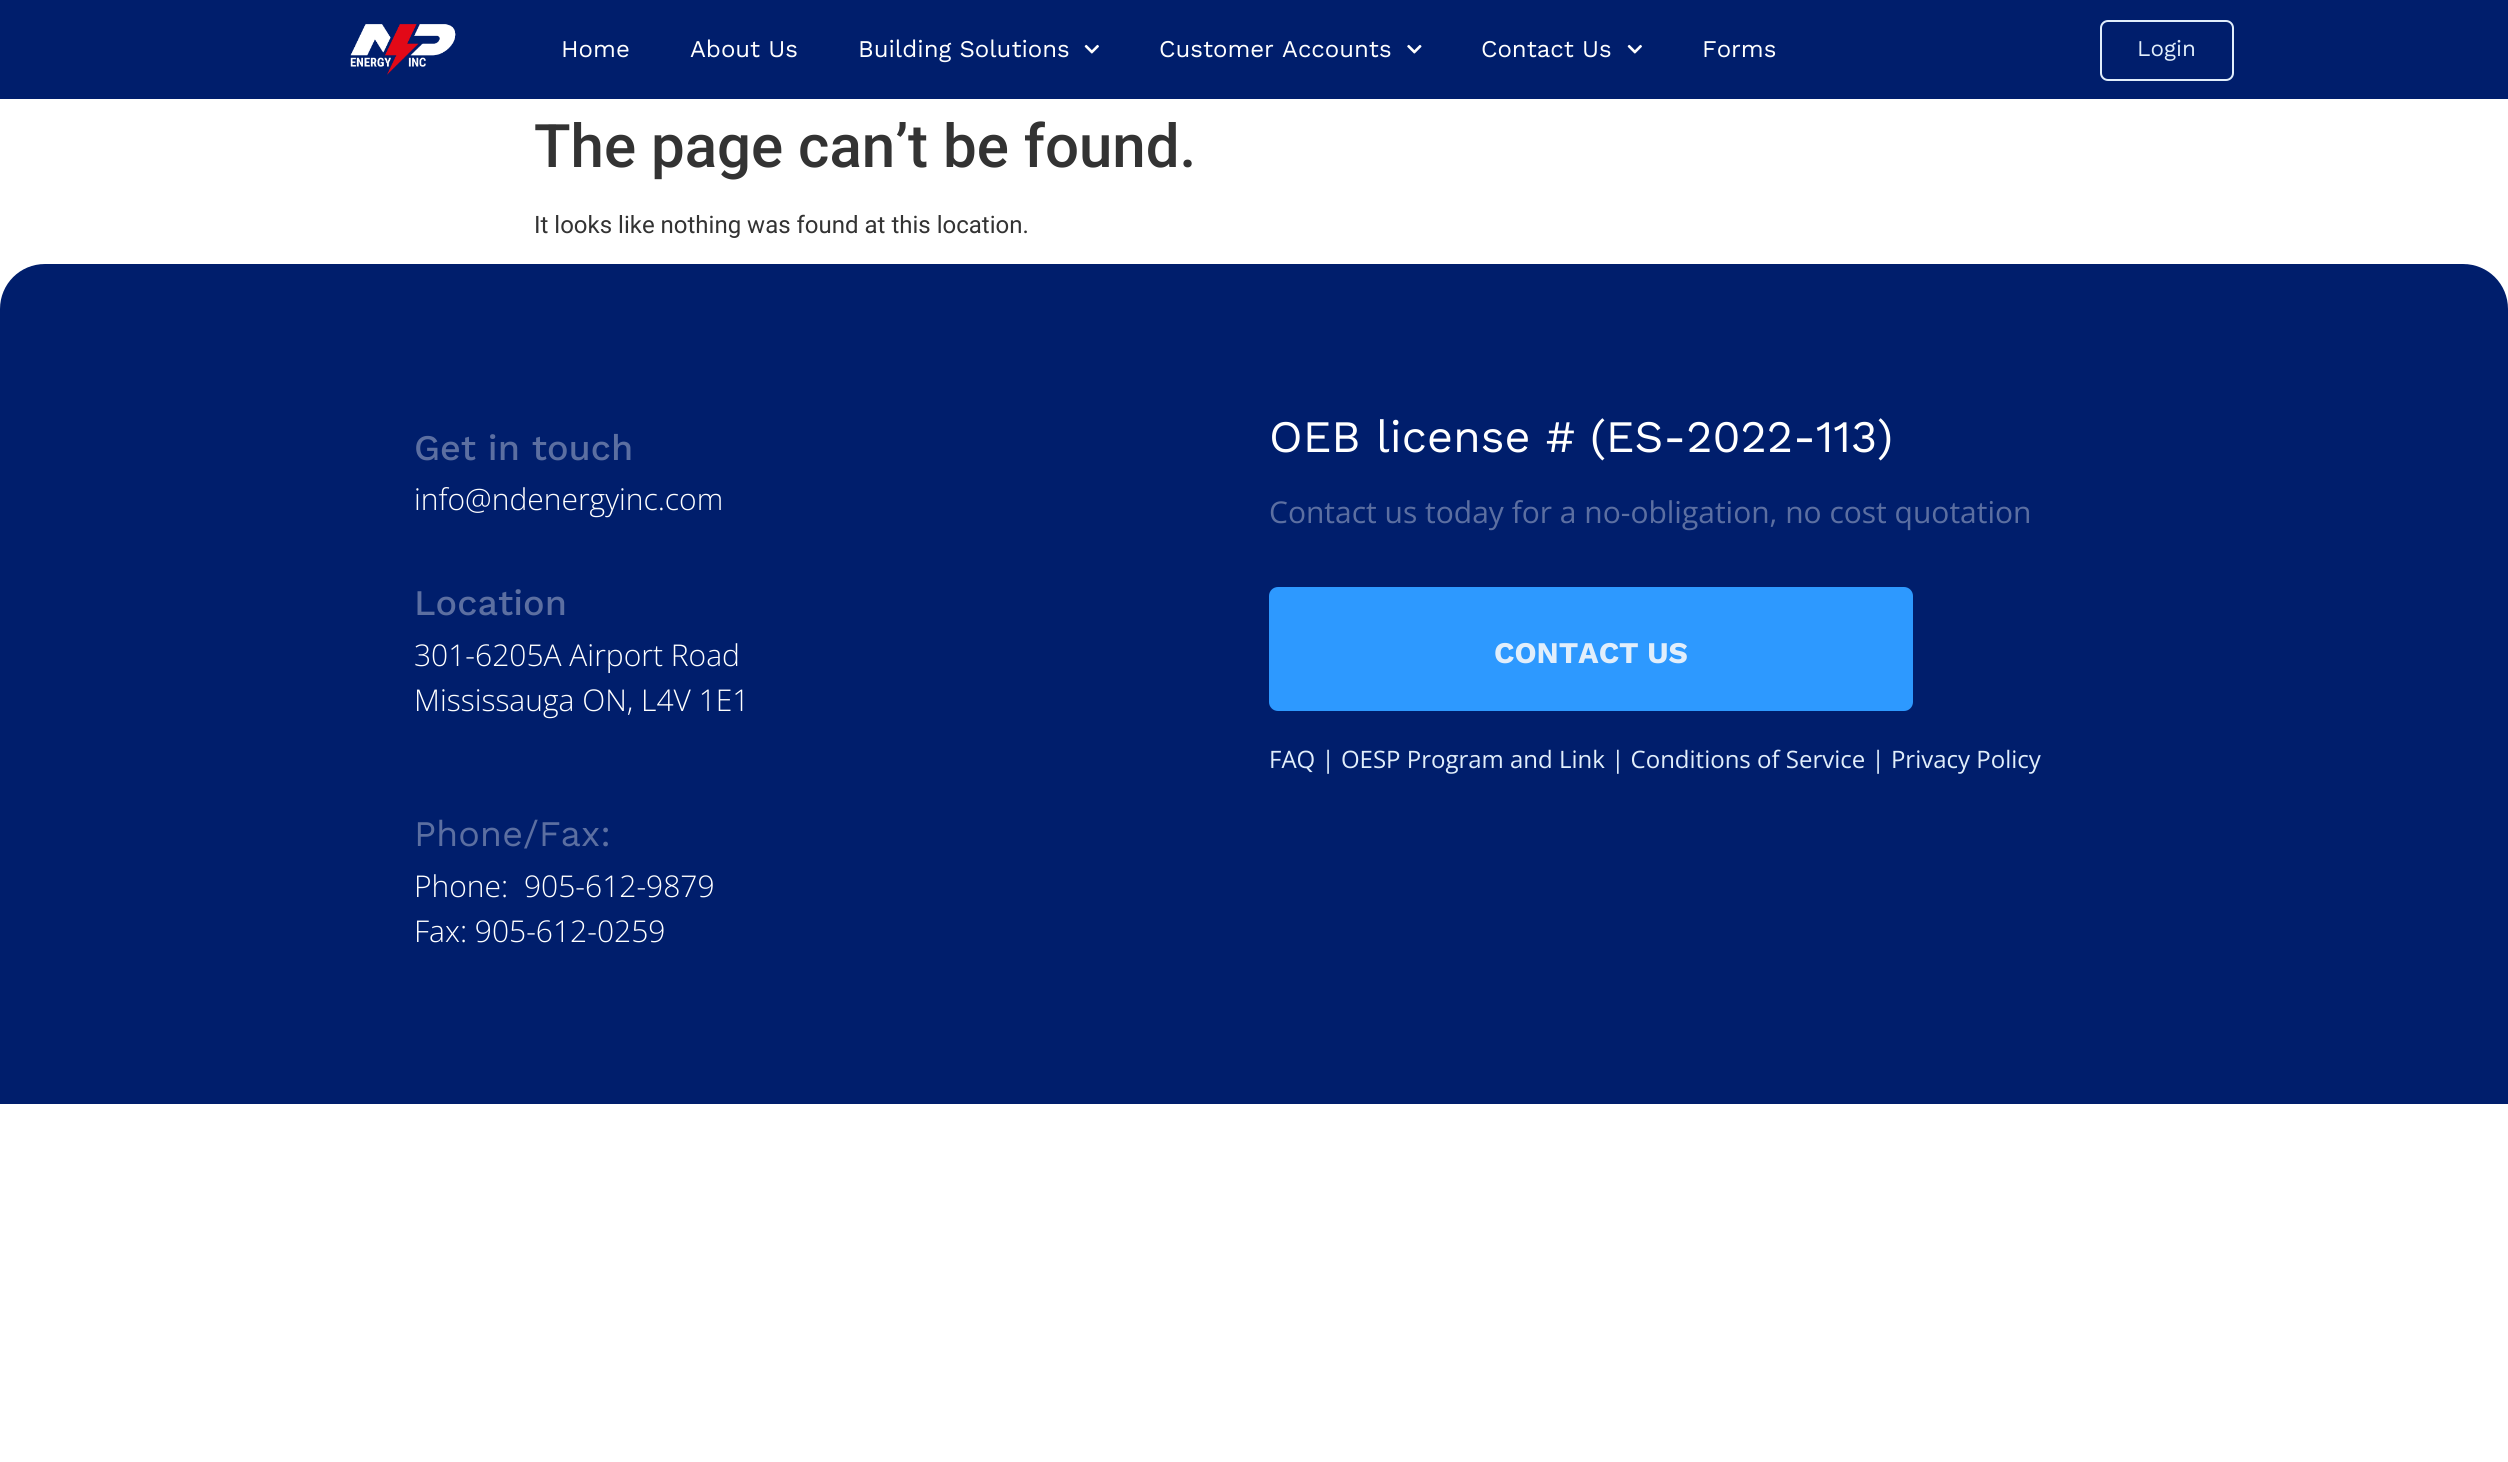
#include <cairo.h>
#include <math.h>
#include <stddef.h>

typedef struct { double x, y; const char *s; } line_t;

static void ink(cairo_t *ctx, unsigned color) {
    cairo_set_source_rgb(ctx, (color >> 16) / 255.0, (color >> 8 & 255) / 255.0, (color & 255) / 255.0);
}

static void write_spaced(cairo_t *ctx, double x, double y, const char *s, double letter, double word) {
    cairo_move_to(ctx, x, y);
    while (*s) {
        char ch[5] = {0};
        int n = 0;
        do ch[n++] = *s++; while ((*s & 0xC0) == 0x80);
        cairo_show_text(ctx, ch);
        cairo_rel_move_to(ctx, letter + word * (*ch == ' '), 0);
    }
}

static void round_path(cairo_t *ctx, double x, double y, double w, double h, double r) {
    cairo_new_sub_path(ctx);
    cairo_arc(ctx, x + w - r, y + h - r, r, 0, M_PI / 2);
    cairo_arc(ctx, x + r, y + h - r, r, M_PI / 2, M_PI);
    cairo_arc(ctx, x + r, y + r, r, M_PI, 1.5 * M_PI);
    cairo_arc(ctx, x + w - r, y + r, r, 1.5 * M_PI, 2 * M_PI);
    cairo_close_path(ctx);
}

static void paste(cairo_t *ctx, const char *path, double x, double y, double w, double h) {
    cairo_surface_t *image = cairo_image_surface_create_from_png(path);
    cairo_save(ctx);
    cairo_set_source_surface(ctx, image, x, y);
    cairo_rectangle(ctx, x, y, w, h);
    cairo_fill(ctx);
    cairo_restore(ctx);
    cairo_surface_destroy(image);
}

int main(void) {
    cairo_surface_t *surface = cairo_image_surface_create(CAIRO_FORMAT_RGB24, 2508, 1462);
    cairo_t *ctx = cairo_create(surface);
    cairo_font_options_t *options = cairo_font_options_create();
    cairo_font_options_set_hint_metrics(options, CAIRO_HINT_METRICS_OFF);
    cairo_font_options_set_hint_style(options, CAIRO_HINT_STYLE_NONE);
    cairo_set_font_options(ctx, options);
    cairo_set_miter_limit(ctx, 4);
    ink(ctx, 0xFFFFFF);
    cairo_paint(ctx);
    ink(ctx, 0x001E6C);
    cairo_rectangle(ctx, 0, 0, 2508, 99);
    cairo_fill(ctx);
    paste(ctx, "media/1.png", 350, 24, 106, 51);
    cairo_select_font_face(ctx, "Work Sans", CAIRO_FONT_SLANT_NORMAL, CAIRO_FONT_WEIGHT_NORMAL);
    cairo_set_font_size(ctx, 24);
    ink(ctx, 0xFFFFFF);
    {
        static const line_t items[] = {
            {561, 57, "Home"},
            {690, 57, "About Us"},
            {858, 57, "Building Solutions"},
        };
        for (size_t i = 0; i < sizeof items / sizeof *items; i++) {
            cairo_move_to(ctx, items[i].x, items[i].y);
            cairo_show_text(ctx, items[i].s);
        }
    }
    paste(ctx, "media/2.png", 1084, 44, 15, 10);
    cairo_move_to(ctx, 1159, 57);
    cairo_show_text(ctx, "Customer Accounts");
    paste(ctx, "media/3.png", 1407, 44, 15, 10);
    cairo_move_to(ctx, 1481, 57);
    cairo_show_text(ctx, "Contact Us");
    paste(ctx, "media/2.png", 1627, 44, 15, 10);
    cairo_move_to(ctx, 1702, 57);
    cairo_show_text(ctx, "Forms");
    round_path(ctx, 2101, 21, 132, 59, 7);
    ink(ctx, 0xE1EEFB);
    cairo_stroke(ctx);
    cairo_set_font_size(ctx, 22.5);
    cairo_move_to(ctx, 2137, 56);
    cairo_show_text(ctx, "Login");
    cairo_select_font_face(ctx, "Roboto Medium", CAIRO_FONT_SLANT_NORMAL, CAIRO_FONT_WEIGHT_NORMAL);
    cairo_set_font_size(ctx, 60);
    ink(ctx, 0x333333);
    cairo_move_to(ctx, 534, 167);
    cairo_show_text(ctx, "The page can’t be found.");
    cairo_select_font_face(ctx, "Roboto", CAIRO_FONT_SLANT_NORMAL, CAIRO_FONT_WEIGHT_NORMAL);
    cairo_set_font_size(ctx, 24);
    cairo_move_to(ctx, 534, 233);
    cairo_show_text(ctx, "It looks like nothing was found at this location.");
    ink(ctx, 0x001E6C);
    cairo_new_path(ctx);
    cairo_move_to(ctx, 45, 264);
    cairo_line_to(ctx, 2463, 264);
    cairo_curve_to(ctx, 2488, 264, 2508, 284, 2508, 309);
    cairo_line_to(ctx, 2508, 1104);
    cairo_line_to(ctx, 0, 1104);
    cairo_line_to(ctx, 0, 309);
    cairo_curve_to(ctx, 0, 284, 20, 264, 45, 264);
    cairo_close_path(ctx);
    cairo_fill(ctx);
    cairo_select_font_face(ctx, "Work Sans Medium", CAIRO_FONT_SLANT_NORMAL, CAIRO_FONT_WEIGHT_NORMAL);
    cairo_set_font_size(ctx, 36);
    ink(ctx, 0x5C6FA1);
    cairo_move_to(ctx, 414, 460);
    cairo_show_text(ctx, "Get in touch");
    cairo_select_font_face(ctx, "Open Sans Light", CAIRO_FONT_SLANT_NORMAL, CAIRO_FONT_WEIGHT_NORMAL);
    cairo_set_font_size(ctx, 30);
    ink(ctx, 0xFFFFFF);
    cairo_move_to(ctx, 414, 510);
    cairo_show_text(ctx, "info@ndenergyinc.com");
    cairo_select_font_face(ctx, "Work Sans Medium", CAIRO_FONT_SLANT_NORMAL, CAIRO_FONT_WEIGHT_NORMAL);
    cairo_set_font_size(ctx, 36);
    ink(ctx, 0x5C6FA1);
    cairo_move_to(ctx, 414, 615);
    cairo_show_text(ctx, "Location");
    cairo_select_font_face(ctx, "Open Sans Light", CAIRO_FONT_SLANT_NORMAL, CAIRO_FONT_WEIGHT_NORMAL);
    cairo_set_font_size(ctx, 30);
    ink(ctx, 0xFFFFFF);
    cairo_move_to(ctx, 414, 666);
    cairo_show_text(ctx, "301-6205A Airport Road");
    cairo_move_to(ctx, 414, 711);
    cairo_show_text(ctx, "Mississauga ON, L4V 1E1");
    cairo_select_font_face(ctx, "Work Sans", CAIRO_FONT_SLANT_NORMAL, CAIRO_FONT_WEIGHT_NORMAL);
    cairo_set_font_size(ctx, 36);
    ink(ctx, 0x5C6FA1);
    cairo_move_to(ctx, 414, 846);
    cairo_show_text(ctx, "Phone/Fax:");
    cairo_select_font_face(ctx, "Open Sans Light", CAIRO_FONT_SLANT_NORMAL, CAIRO_FONT_WEIGHT_NORMAL);
    cairo_set_font_size(ctx, 30);
    ink(ctx, 0xFFFFFF);
    write_spaced(ctx, 414, 897, "Phone: 905-612-9879", 0, 8);
    cairo_move_to(ctx, 414, 942);
    cairo_show_text(ctx, "Fax: 905-612-0259");
    cairo_select_font_face(ctx, "Work Sans", CAIRO_FONT_SLANT_NORMAL, CAIRO_FONT_WEIGHT_NORMAL);
    cairo_set_font_size(ctx, 45);
    cairo_move_to(ctx, 1269, 452);
    cairo_show_text(ctx, "OEB license # (ES-2022-113)");
    cairo_select_font_face(ctx, "Open Sans", CAIRO_FONT_SLANT_NORMAL, CAIRO_FONT_WEIGHT_NORMAL);
    cairo_set_font_size(ctx, 30);
    ink(ctx, 0x5C6FA1);
    cairo_move_to(ctx, 1269, 523);
    cairo_show_text(ctx, "Contact us today for a no-obligation, no cost quotation");
    ink(ctx, 0x2D99FF);
    round_path(ctx, 1269, 587, 644, 124, 9);
    cairo_fill(ctx);
    cairo_select_font_face(ctx, "Work Sans", CAIRO_FONT_SLANT_NORMAL, CAIRO_FONT_WEIGHT_BOLD);
    ink(ctx, 0xE1EEFB);
    cairo_move_to(ctx, 1494, 663);
    cairo_show_text(ctx, "CONTACT US");
    cairo_select_font_face(ctx, "Open Sans", CAIRO_FONT_SLANT_NORMAL, CAIRO_FONT_WEIGHT_NORMAL);
    cairo_set_font_size(ctx, 24);
    cairo_move_to(ctx, 1269, 768);
    cairo_show_text(ctx, "FAQ | OESP Program and Link | Conditions of Service | Privacy Policy");
    cairo_surface_write_to_png(surface, "image.png");
    cairo_font_options_destroy(options);
    cairo_destroy(ctx);
    cairo_surface_destroy(surface);
    return 0;
}
